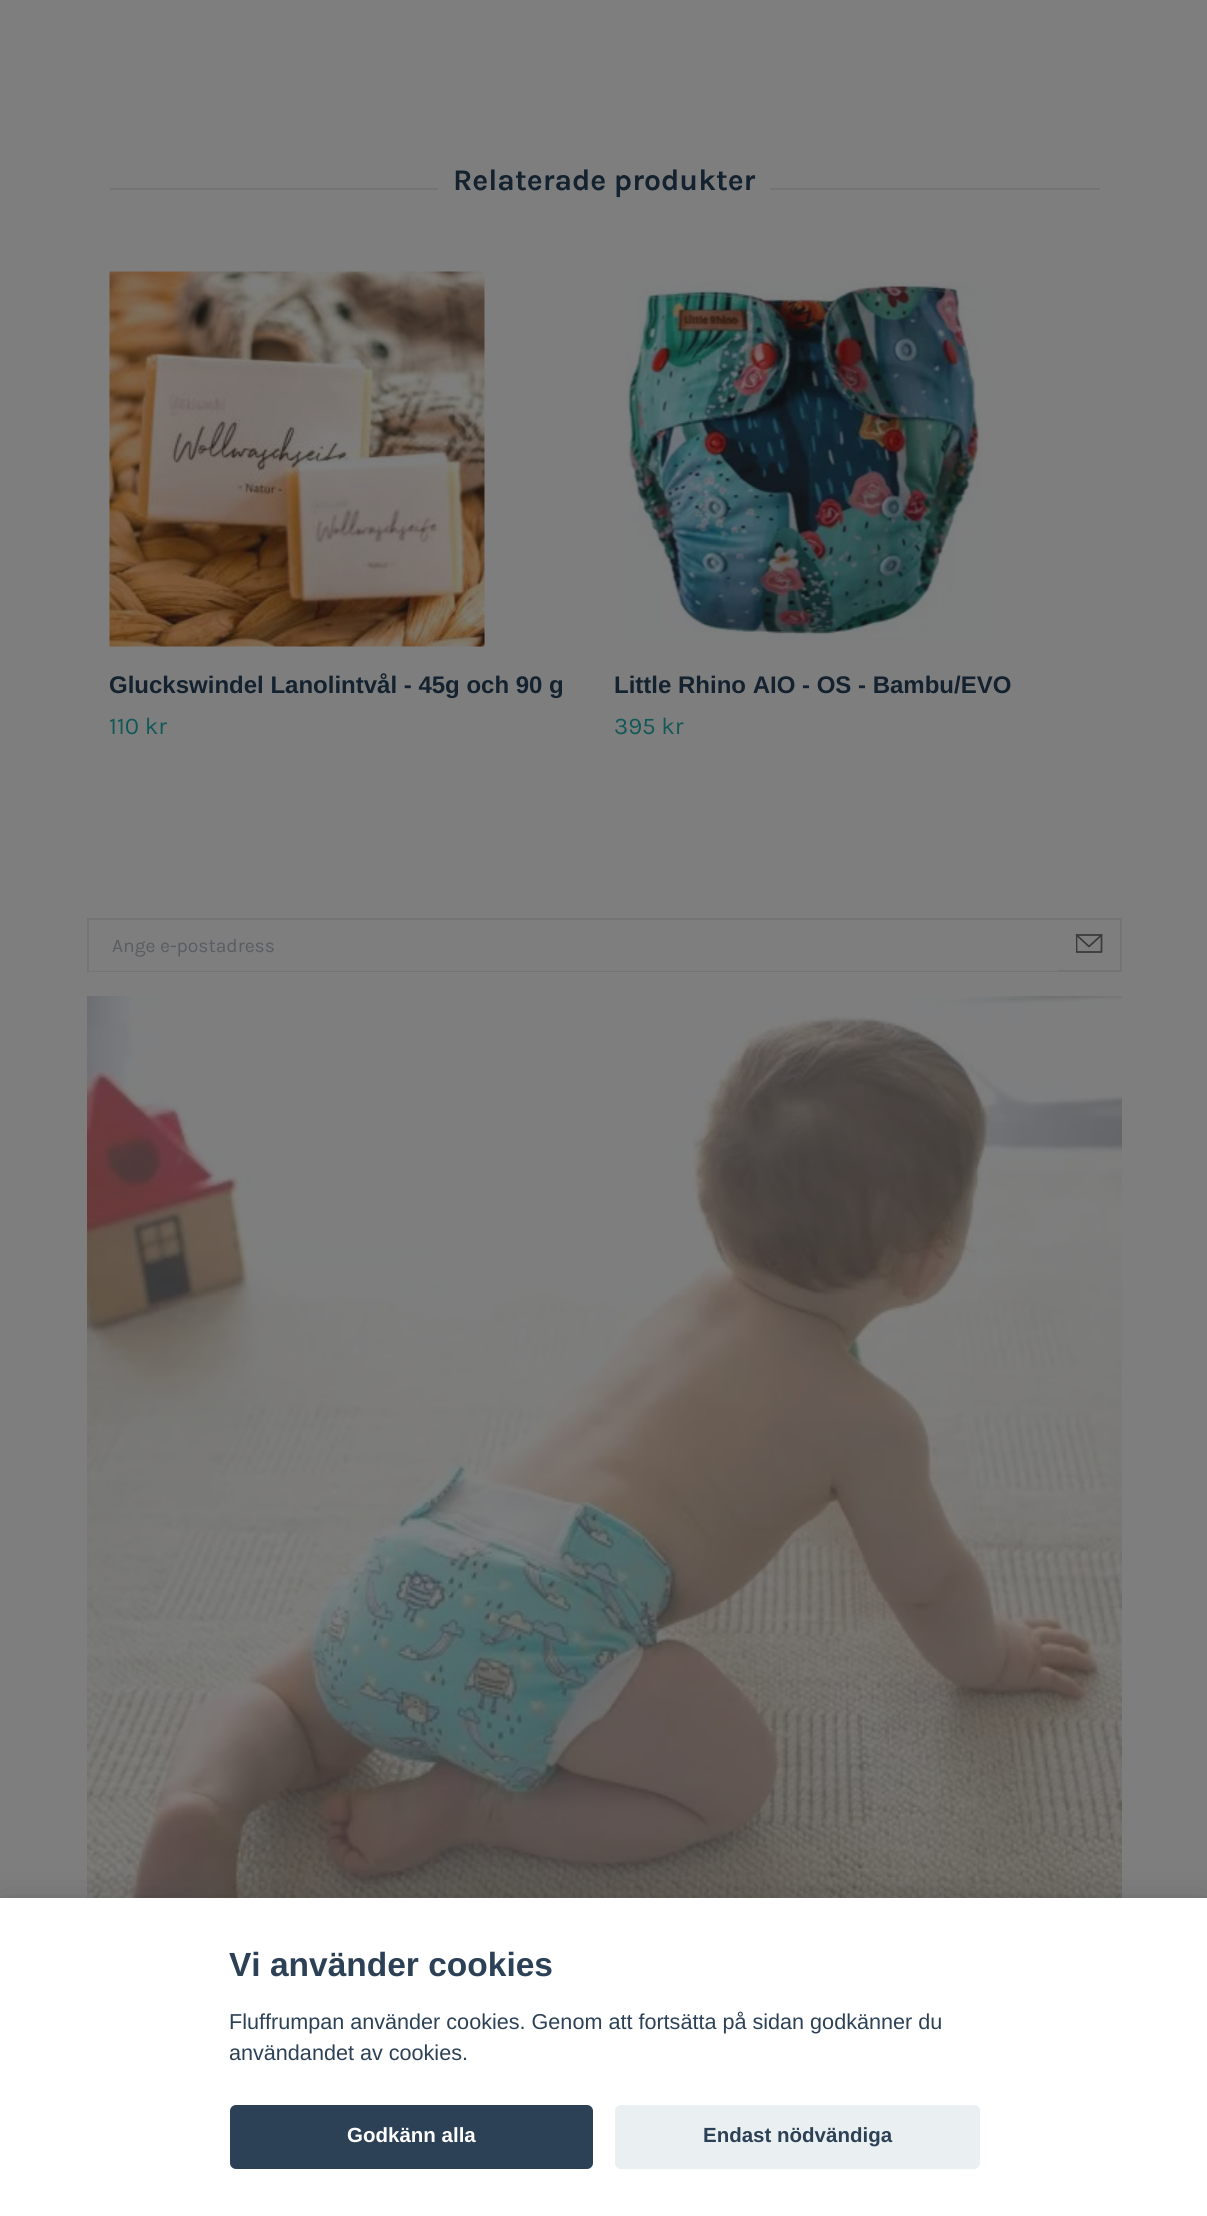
#include <cairo.h>
#include <math.h>
#include <stddef.h>


static void ink(cairo_t *ctx, unsigned color) {
    cairo_set_source_rgb(ctx, (color >> 16) / 255.0, (color >> 8 & 255) / 255.0, (color & 255) / 255.0);
}

static void round_path(cairo_t *ctx, double x, double y, double w, double h, double r) {
    cairo_new_sub_path(ctx);
    cairo_arc(ctx, x + w - r, y + h - r, r, 0, M_PI / 2);
    cairo_arc(ctx, x + r, y + h - r, r, M_PI / 2, M_PI);
    cairo_arc(ctx, x + r, y + r, r, M_PI, 1.5 * M_PI);
    cairo_arc(ctx, x + w - r, y + r, r, 1.5 * M_PI, 2 * M_PI);
    cairo_close_path(ctx);
}

static void blur_box(cairo_t *ctx, double x, double y, double w, double h, double r, double blur, double alpha) {
    cairo_push_group_with_content(ctx, CAIRO_CONTENT_ALPHA);
    cairo_set_operator(ctx, CAIRO_OPERATOR_SOURCE);
    for (int i = 15; i >= -15 && fmin(w, h) + blur * i / 3 > 0; i -= 2) {
        double e = blur * i / 6;
        cairo_set_source_rgba(ctx, 0, 0, 0, alpha * erfc((i - 1) / 8.5) / 2);
        round_path(ctx, x - e, y - e, w + 2 * e, h + 2 * e, fmax(0, fmin(r + e + blur * .6, fmin(w, h) / 2 + e)));
        cairo_fill(ctx);
    }
    cairo_pattern_t *soft = cairo_pop_group(ctx);
    cairo_mask(ctx, soft);
    cairo_pattern_destroy(soft);
}

static void paste(cairo_t *ctx, const char *path, double x, double y, double w, double h) {
    cairo_surface_t *image = cairo_image_surface_create_from_png(path);
    cairo_save(ctx);
    cairo_set_source_surface(ctx, image, x, y);
    cairo_rectangle(ctx, x, y, w, h);
    cairo_fill(ctx);
    cairo_restore(ctx);
    cairo_surface_destroy(image);
}

int main(void) {
    cairo_surface_t *surface = cairo_image_surface_create(CAIRO_FORMAT_RGB24, 1207, 2216);
    cairo_t *ctx = cairo_create(surface);
    cairo_font_options_t *options = cairo_font_options_create();
    cairo_font_options_set_hint_metrics(options, CAIRO_HINT_METRICS_OFF);
    cairo_font_options_set_hint_style(options, CAIRO_HINT_STYLE_NONE);
    cairo_set_font_options(ctx, options);
    cairo_set_miter_limit(ctx, 4);
    ink(ctx, 0x7E7E7F);
    cairo_paint(ctx);
    ink(ctx, 0x747475);
    cairo_rectangle(ctx, 110, 188, 990, 2);
    cairo_fill(ctx);
    ink(ctx, 0x7E7E7F);
    cairo_rectangle(ctx, 438, 188, 332, 2);
    cairo_fill(ctx);
    cairo_select_font_face(ctx, "Karla", CAIRO_FONT_SLANT_NORMAL, CAIRO_FONT_WEIGHT_BOLD);
    cairo_set_font_size(ctx, 30);
    ink(ctx, 0x14222F);
    cairo_move_to(ctx, 453, 190);
    cairo_show_text(ctx, "Relaterade produkter");
    paste(ctx, "media/1.png", 109, 271, 376, 376);
    cairo_save(ctx);
    cairo_rectangle(ctx, 110, 272, 990, 550);
    cairo_clip(ctx);
    cairo_select_font_face(ctx, "Arimo", CAIRO_FONT_SLANT_NORMAL, CAIRO_FONT_WEIGHT_BOLD);
    cairo_set_font_size(ctx, 24);
    cairo_move_to(ctx, 109, 693);
    cairo_show_text(ctx, "Gluckswindel Lanolintvål - 45g och 90 g");
    cairo_restore(ctx);
    cairo_select_font_face(ctx, "Karla", CAIRO_FONT_SLANT_NORMAL, CAIRO_FONT_WEIGHT_NORMAL);
    cairo_set_font_size(ctx, 24);
    ink(ctx, 0x145857);
    cairo_move_to(ctx, 109, 734);
    cairo_show_text(ctx, "110 kr");
    paste(ctx, "media/2.png", 626, 281, 356, 359);
    cairo_select_font_face(ctx, "Arimo", CAIRO_FONT_SLANT_NORMAL, CAIRO_FONT_WEIGHT_BOLD);
    ink(ctx, 0x14222F);
    cairo_move_to(ctx, 614, 693);
    cairo_show_text(ctx, "Little Rhino AIO - OS - Bambu/EVO");
    cairo_select_font_face(ctx, "Karla", CAIRO_FONT_SLANT_NORMAL, CAIRO_FONT_WEIGHT_NORMAL);
    ink(ctx, 0x145857);
    cairo_move_to(ctx, 614, 734);
    cairo_show_text(ctx, "395 kr");
    cairo_rectangle(ctx, 88, 919, 1033, 52);
    ink(ctx, 0x747475);
    cairo_stroke(ctx);
    ink(ctx, 0x7E7E7F);
    cairo_rectangle(ctx, 89, 970, 969, 1);
    cairo_fill(ctx);
    cairo_set_font_size(ctx, 19.25);
    ink(ctx, 0x595D61);
    cairo_move_to(ctx, 112, 952);
    cairo_show_text(ctx, "Ange e-postadress");
    cairo_new_path(ctx);
    cairo_move_to(ctx, 1076.5, 935);
    cairo_line_to(ctx, 1089, 946.5);
    cairo_line_to(ctx, 1101.5, 935);
    ink(ctx, 0x383939);
    cairo_set_line_width(ctx, 1.7);
    cairo_set_line_cap(ctx, CAIRO_LINE_CAP_ROUND);
    cairo_set_line_join(ctx, CAIRO_LINE_JOIN_ROUND);
    cairo_stroke(ctx);
    cairo_save(ctx);
    cairo_rectangle(ctx, 1076, 930, 27, 27);
    cairo_clip(ctx);
    cairo_new_path(ctx);
    cairo_move_to(ctx, 1076.5, 935);
    cairo_line_to(ctx, 1101.5, 935);
    cairo_line_to(ctx, 1101.5, 952);
    cairo_line_to(ctx, 1076.5, 952);
    cairo_close_path(ctx);
    cairo_stroke(ctx);
    cairo_restore(ctx);
    paste(ctx, "media/3.png", 87, 996, 1035, 902);
    ink(ctx, 0x020203);
    blur_box(ctx, 0, 1913, 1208, 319, 0, 22.5, 0.28);
    ink(ctx, 0xFFFFFF);
    cairo_rectangle(ctx, 0, 1898, 1207, 318);
    cairo_fill(ctx);
    cairo_select_font_face(ctx, "Liberation Sans", CAIRO_FONT_SLANT_NORMAL, CAIRO_FONT_WEIGHT_BOLD);
    cairo_set_font_size(ctx, 33.5);
    ink(ctx, 0x2D4156);
    cairo_move_to(ctx, 229, 1976);
    cairo_show_text(ctx, "Vi använder cookies");
    cairo_select_font_face(ctx, "Liberation Sans", CAIRO_FONT_SLANT_NORMAL, CAIRO_FONT_WEIGHT_NORMAL);
    cairo_set_font_size(ctx, 21.6);
    cairo_move_to(ctx, 229, 2029);
    cairo_show_text(ctx, "Fluffrumpan använder cookies. Genom att fortsätta på sidan godkänner du");
    cairo_move_to(ctx, 229, 2060);
    cairo_show_text(ctx, "användandet av cookies.");
    round_path(ctx, 230, 2105, 363, 64, 6);
    cairo_fill(ctx);
    cairo_select_font_face(ctx, "Liberation Sans", CAIRO_FONT_SLANT_NORMAL, CAIRO_FONT_WEIGHT_BOLD);
    cairo_set_font_size(ctx, 20.5);
    ink(ctx, 0xFFFFFF);
    cairo_move_to(ctx, 347, 2142);
    cairo_show_text(ctx, "Godkänn alla");
    ink(ctx, 0xEAEFF2);
    round_path(ctx, 615, 2105, 365, 64, 6);
    cairo_fill(ctx);
    ink(ctx, 0x2D4156);
    cairo_move_to(ctx, 703, 2142);
    cairo_show_text(ctx, "Endast nödvändiga");
    cairo_surface_write_to_png(surface, "image.png");
    cairo_font_options_destroy(options);
    cairo_destroy(ctx);
    cairo_surface_destroy(surface);
    return 0;
}
